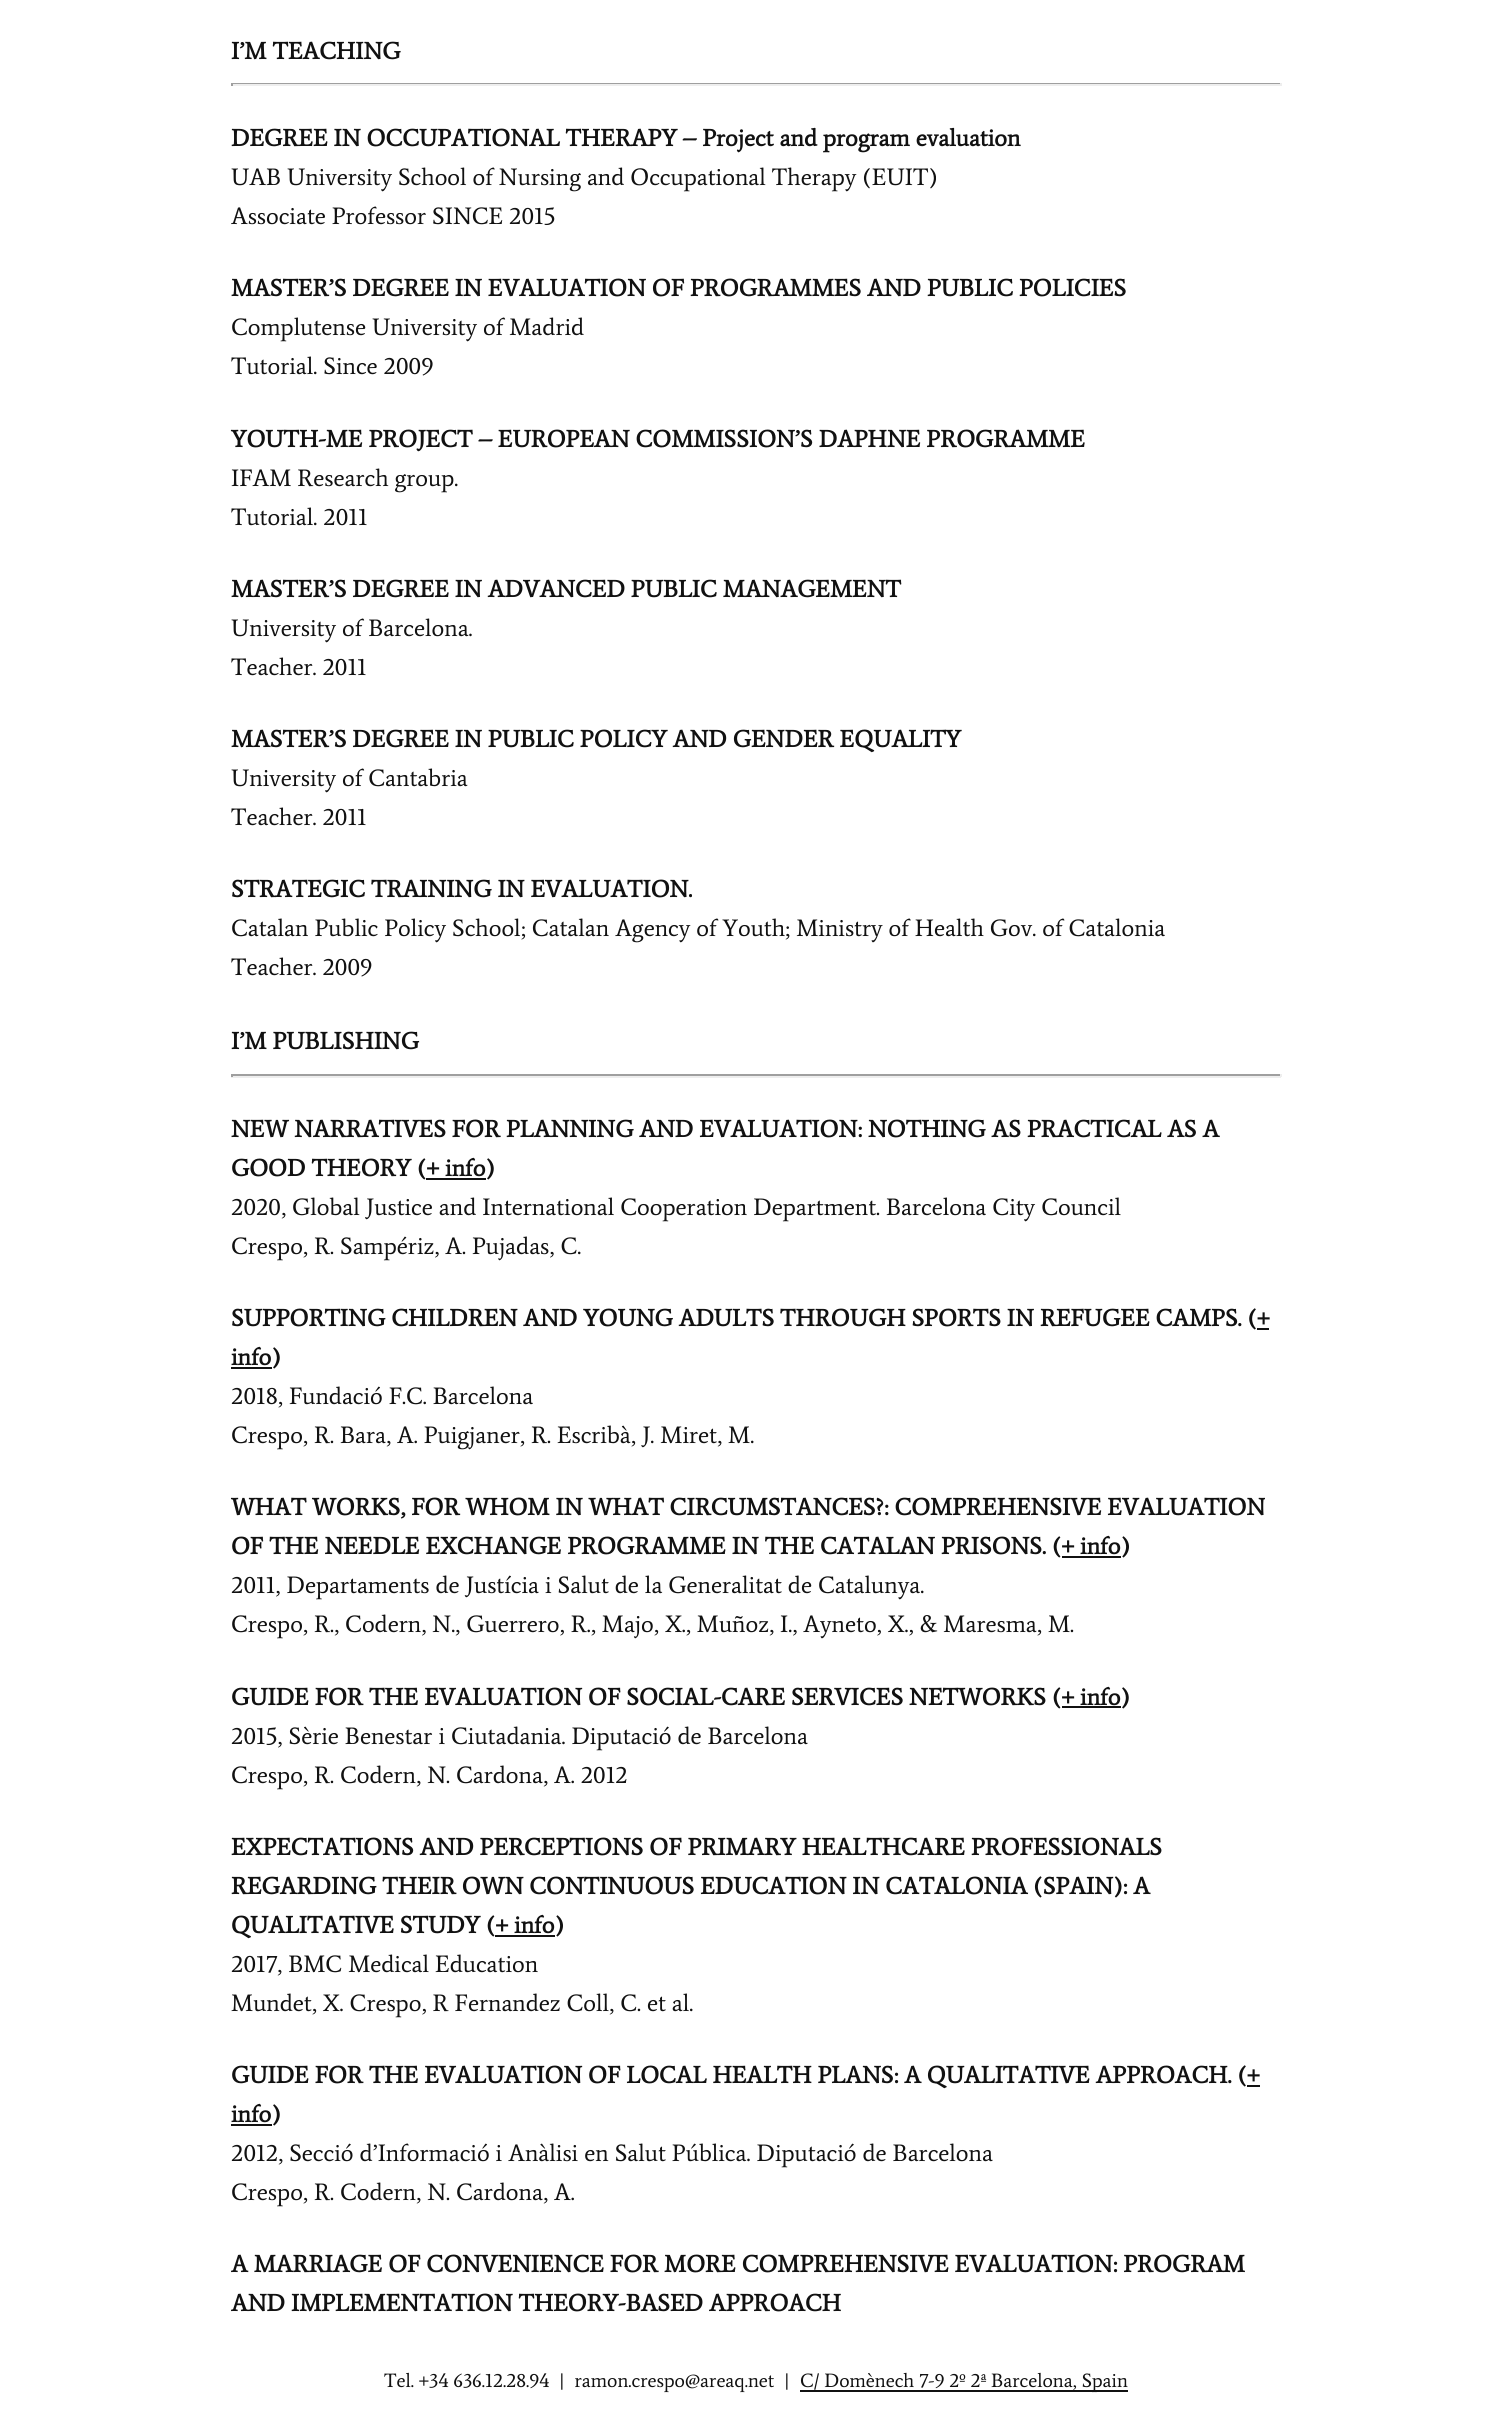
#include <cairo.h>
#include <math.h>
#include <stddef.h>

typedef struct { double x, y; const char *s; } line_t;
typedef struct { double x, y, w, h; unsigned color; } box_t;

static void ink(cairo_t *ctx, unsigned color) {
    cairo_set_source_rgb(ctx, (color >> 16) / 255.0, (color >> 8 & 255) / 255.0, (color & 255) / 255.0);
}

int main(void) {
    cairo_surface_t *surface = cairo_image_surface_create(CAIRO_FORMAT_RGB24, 1512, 2431);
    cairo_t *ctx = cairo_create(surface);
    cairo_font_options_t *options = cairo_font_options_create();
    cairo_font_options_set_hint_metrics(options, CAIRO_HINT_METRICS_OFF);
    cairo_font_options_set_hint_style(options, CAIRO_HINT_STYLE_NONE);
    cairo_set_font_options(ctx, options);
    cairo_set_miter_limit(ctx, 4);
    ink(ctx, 0xFFFFFF);
    cairo_paint(ctx);
    cairo_select_font_face(ctx, "Average", CAIRO_FONT_SLANT_NORMAL, CAIRO_FONT_WEIGHT_BOLD);
    cairo_set_font_size(ctx, 24);
    ink(ctx, 0x111111);
    cairo_move_to(ctx, 231, 59);
    cairo_show_text(ctx, "I’M TEACHING");
    {
        static const box_t items[] = {
            {231, 83, 1050, 1, 0x9F9F9F},
            {1280, 83, 2, 3, 0xEEEEEE},
            {231, 84, 1050, 2, 0xEEEEEE},
            {231, 83, 2, 3, 0x9F9F9F},
        };
        for (size_t i = 0; i < sizeof items / sizeof *items; i++) {
            ink(ctx, items[i].color);
            cairo_rectangle(ctx, items[i].x, items[i].y, items[i].w, items[i].h);
            cairo_fill(ctx);
        }
    }
    ink(ctx, 0x111111);
    cairo_move_to(ctx, 231, 146);
    cairo_show_text(ctx, "DEGREE IN OCCUPATIONAL THERAPY – Project and program evaluation");
    cairo_select_font_face(ctx, "Average", CAIRO_FONT_SLANT_NORMAL, CAIRO_FONT_WEIGHT_NORMAL);
    cairo_move_to(ctx, 231, 185);
    cairo_show_text(ctx, "UAB University School of Nursing and Occupational Therapy (EUIT)");
    cairo_move_to(ctx, 231, 224);
    cairo_show_text(ctx, "Associate Professor SINCE 2015");
    cairo_select_font_face(ctx, "Average", CAIRO_FONT_SLANT_NORMAL, CAIRO_FONT_WEIGHT_BOLD);
    cairo_move_to(ctx, 231, 296);
    cairo_show_text(ctx, "MASTER’S DEGREE IN EVALUATION OF PROGRAMMES AND PUBLIC POLICIES");
    cairo_select_font_face(ctx, "Average", CAIRO_FONT_SLANT_NORMAL, CAIRO_FONT_WEIGHT_NORMAL);
    cairo_move_to(ctx, 231, 335);
    cairo_show_text(ctx, "Complutense University of Madrid");
    cairo_move_to(ctx, 231, 374);
    cairo_show_text(ctx, "Tutorial. Since 2009");
    cairo_select_font_face(ctx, "Average", CAIRO_FONT_SLANT_NORMAL, CAIRO_FONT_WEIGHT_BOLD);
    cairo_move_to(ctx, 231, 447);
    cairo_show_text(ctx, "YOUTH-ME PROJECT – EUROPEAN COMMISSION’S DAPHNE PROGRAMME");
    cairo_select_font_face(ctx, "Average", CAIRO_FONT_SLANT_NORMAL, CAIRO_FONT_WEIGHT_NORMAL);
    cairo_move_to(ctx, 231, 486);
    cairo_show_text(ctx, "IFAM Research group.");
    cairo_move_to(ctx, 231, 525);
    cairo_show_text(ctx, "Tutorial. 2011");
    cairo_select_font_face(ctx, "Average", CAIRO_FONT_SLANT_NORMAL, CAIRO_FONT_WEIGHT_BOLD);
    cairo_move_to(ctx, 231, 597);
    cairo_show_text(ctx, "MASTER’S DEGREE IN ADVANCED PUBLIC MANAGEMENT");
    cairo_select_font_face(ctx, "Average", CAIRO_FONT_SLANT_NORMAL, CAIRO_FONT_WEIGHT_NORMAL);
    cairo_move_to(ctx, 231, 636);
    cairo_show_text(ctx, "University of Barcelona.");
    cairo_move_to(ctx, 231, 675);
    cairo_show_text(ctx, "Teacher. 2011");
    cairo_select_font_face(ctx, "Average", CAIRO_FONT_SLANT_NORMAL, CAIRO_FONT_WEIGHT_BOLD);
    cairo_move_to(ctx, 231, 747);
    cairo_show_text(ctx, "MASTER’S DEGREE IN PUBLIC POLICY AND GENDER EQUALITY");
    cairo_select_font_face(ctx, "Average", CAIRO_FONT_SLANT_NORMAL, CAIRO_FONT_WEIGHT_NORMAL);
    cairo_move_to(ctx, 231, 786);
    cairo_show_text(ctx, "University of Cantabria");
    cairo_move_to(ctx, 231, 825);
    cairo_show_text(ctx, "Teacher. 2011");
    cairo_select_font_face(ctx, "Average", CAIRO_FONT_SLANT_NORMAL, CAIRO_FONT_WEIGHT_BOLD);
    cairo_move_to(ctx, 231, 897);
    cairo_show_text(ctx, "STRATEGIC TRAINING IN EVALUATION.");
    cairo_select_font_face(ctx, "Average", CAIRO_FONT_SLANT_NORMAL, CAIRO_FONT_WEIGHT_NORMAL);
    cairo_move_to(ctx, 231, 936);
    cairo_show_text(ctx, "Catalan Public Policy School; Catalan Agency of Youth; Ministry of Health Gov. of Catalonia");
    cairo_move_to(ctx, 231, 975);
    cairo_show_text(ctx, "Teacher. 2009");
    cairo_select_font_face(ctx, "Average", CAIRO_FONT_SLANT_NORMAL, CAIRO_FONT_WEIGHT_BOLD);
    cairo_move_to(ctx, 231, 1049);
    cairo_show_text(ctx, "I’M PUBLISHING");
    {
        static const box_t items[] = {
            {231, 1074, 1050, 2, 0x9F9F9F},
            {1280, 1074, 2, 3, 0xEEEEEE},
            {231, 1076, 1050, 2, 0xEEEEEE},
            {231, 1074, 2, 3, 0x9F9F9F},
        };
        for (size_t i = 0; i < sizeof items / sizeof *items; i++) {
            ink(ctx, items[i].color);
            cairo_rectangle(ctx, items[i].x, items[i].y, items[i].w, items[i].h);
            cairo_fill(ctx);
        }
    }
    ink(ctx, 0x111111);
    cairo_move_to(ctx, 231, 1137);
    cairo_show_text(ctx, "NEW NARRATIVES FOR PLANNING AND EVALUATION: NOTHING AS PRACTICAL AS A");
    cairo_move_to(ctx, 231, 1176);
    cairo_show_text(ctx, "GOOD THEORY (+ info)");
    cairo_rectangle(ctx, 426, 1178, 60, 2);
    cairo_fill(ctx);
    cairo_select_font_face(ctx, "Average", CAIRO_FONT_SLANT_NORMAL, CAIRO_FONT_WEIGHT_NORMAL);
    cairo_move_to(ctx, 231, 1215);
    cairo_show_text(ctx, "2020, Global Justice and International Cooperation Department. Barcelona City Council");
    cairo_move_to(ctx, 231, 1254);
    cairo_show_text(ctx, "Crespo, R. Sampériz, A. Pujadas, C.");
    cairo_select_font_face(ctx, "Average", CAIRO_FONT_SLANT_NORMAL, CAIRO_FONT_WEIGHT_BOLD);
    cairo_move_to(ctx, 231, 1326);
    cairo_show_text(ctx, "SUPPORTING CHILDREN AND YOUNG ADULTS THROUGH SPORTS IN REFUGEE CAMPS. (+");
    cairo_rectangle(ctx, 1257, 1328, 12, 2);
    cairo_fill(ctx);
    cairo_rectangle(ctx, 231, 1367, 41, 2);
    cairo_fill(ctx);
    cairo_move_to(ctx, 231, 1365);
    cairo_show_text(ctx, "info)");
    cairo_select_font_face(ctx, "Average", CAIRO_FONT_SLANT_NORMAL, CAIRO_FONT_WEIGHT_NORMAL);
    cairo_move_to(ctx, 231, 1404);
    cairo_show_text(ctx, "2018, Fundació F.C. Barcelona");
    cairo_move_to(ctx, 231, 1443);
    cairo_show_text(ctx, "Crespo, R. Bara, A. Puigjaner, R. Escribà, J. Miret, M.");
    cairo_select_font_face(ctx, "Average", CAIRO_FONT_SLANT_NORMAL, CAIRO_FONT_WEIGHT_BOLD);
    cairo_move_to(ctx, 231, 1515);
    cairo_show_text(ctx, "WHAT WORKS, FOR WHOM IN WHAT CIRCUMSTANCES?: COMPREHENSIVE EVALUATION");
    cairo_move_to(ctx, 231, 1554);
    cairo_show_text(ctx, "OF THE NEEDLE EXCHANGE PROGRAMME IN THE CATALAN PRISONS. (+ info)");
    cairo_rectangle(ctx, 1062, 1556, 59, 2);
    cairo_fill(ctx);
    cairo_select_font_face(ctx, "Average", CAIRO_FONT_SLANT_NORMAL, CAIRO_FONT_WEIGHT_NORMAL);
    cairo_move_to(ctx, 231, 1593);
    cairo_show_text(ctx, "2011, Departaments de Justícia i Salut de la Generalitat de Catalunya.");
    cairo_move_to(ctx, 231, 1632);
    cairo_show_text(ctx, "Crespo, R., Codern, N., Guerrero, R., Majo, X., Muñoz, I., Ayneto, X., & Maresma, M.");
    cairo_select_font_face(ctx, "Average", CAIRO_FONT_SLANT_NORMAL, CAIRO_FONT_WEIGHT_BOLD);
    cairo_move_to(ctx, 231, 1705);
    cairo_show_text(ctx, "GUIDE FOR THE EVALUATION OF SOCIAL-CARE SERVICES NETWORKS (+ info)");
    cairo_rectangle(ctx, 1062, 1706, 59, 2);
    cairo_fill(ctx);
    cairo_select_font_face(ctx, "Average", CAIRO_FONT_SLANT_NORMAL, CAIRO_FONT_WEIGHT_NORMAL);
    cairo_move_to(ctx, 231, 1744);
    cairo_show_text(ctx, "2015, Sèrie Benestar i Ciutadania. Diputació de Barcelona");
    cairo_move_to(ctx, 231, 1783);
    cairo_show_text(ctx, "Crespo, R. Codern, N. Cardona, A. 2012");
    cairo_select_font_face(ctx, "Average", CAIRO_FONT_SLANT_NORMAL, CAIRO_FONT_WEIGHT_BOLD);
    {
        static const line_t items[] = {
            {231, 1855, "EXPECTATIONS AND PERCEPTIONS OF PRIMARY HEALTHCARE PROFESSIONALS"},
            {231, 1894, "REGARDING THEIR OWN CONTINUOUS EDUCATION IN CATALONIA (SPAIN): A"},
            {231, 1933, "QUALITATIVE STUDY (+ info)"},
        };
        for (size_t i = 0; i < sizeof items / sizeof *items; i++) {
            cairo_move_to(ctx, items[i].x, items[i].y);
            cairo_show_text(ctx, items[i].s);
        }
    }
    cairo_rectangle(ctx, 495, 1935, 60, 2);
    cairo_fill(ctx);
    cairo_select_font_face(ctx, "Average", CAIRO_FONT_SLANT_NORMAL, CAIRO_FONT_WEIGHT_NORMAL);
    cairo_move_to(ctx, 231, 1972);
    cairo_show_text(ctx, "2017, BMC Medical Education");
    cairo_move_to(ctx, 231, 2011);
    cairo_show_text(ctx, "Mundet, X. Crespo, R Fernandez Coll, C. et al.");
    cairo_select_font_face(ctx, "Average", CAIRO_FONT_SLANT_NORMAL, CAIRO_FONT_WEIGHT_BOLD);
    cairo_move_to(ctx, 231, 2083);
    cairo_show_text(ctx, "GUIDE FOR THE EVALUATION OF LOCAL HEALTH PLANS: A QUALITATIVE APPROACH. (+");
    cairo_rectangle(ctx, 1247, 2085, 13, 2);
    cairo_fill(ctx);
    cairo_rectangle(ctx, 231, 2124, 41, 2);
    cairo_fill(ctx);
    cairo_move_to(ctx, 231, 2122);
    cairo_show_text(ctx, "info)");
    cairo_select_font_face(ctx, "Average", CAIRO_FONT_SLANT_NORMAL, CAIRO_FONT_WEIGHT_NORMAL);
    cairo_move_to(ctx, 231, 2161);
    cairo_show_text(ctx, "2012, Secció d’Informació i Anàlisi en Salut Pública. Diputació de Barcelona");
    cairo_move_to(ctx, 231, 2200);
    cairo_show_text(ctx, "Crespo, R. Codern, N. Cardona, A.");
    cairo_select_font_face(ctx, "Average", CAIRO_FONT_SLANT_NORMAL, CAIRO_FONT_WEIGHT_BOLD);
    cairo_move_to(ctx, 231, 2272);
    cairo_show_text(ctx, "A MARRIAGE OF CONVENIENCE FOR MORE COMPREHENSIVE EVALUATION: PROGRAM");
    cairo_move_to(ctx, 231, 2311);
    cairo_show_text(ctx, "AND IMPLEMENTATION THEORY-BASED APPROACH");
    cairo_select_font_face(ctx, "Average", CAIRO_FONT_SLANT_NORMAL, CAIRO_FONT_WEIGHT_NORMAL);
    cairo_set_font_size(ctx, 19.5);
    cairo_move_to(ctx, 384, 2387);
    cairo_show_text(ctx, "Tel. +34 636.12.28.94  |  ramon.crespo@areaq.net  |");
    cairo_rectangle(ctx, 800, 2390, 328, 2);
    cairo_fill(ctx);
    cairo_move_to(ctx, 800, 2387);
    cairo_show_text(ctx, "C/ Domènech 7-9 2º 2ª Barcelona, Spain");
    cairo_surface_write_to_png(surface, "image.png");
    cairo_font_options_destroy(options);
    cairo_destroy(ctx);
    cairo_surface_destroy(surface);
    return 0;
}
